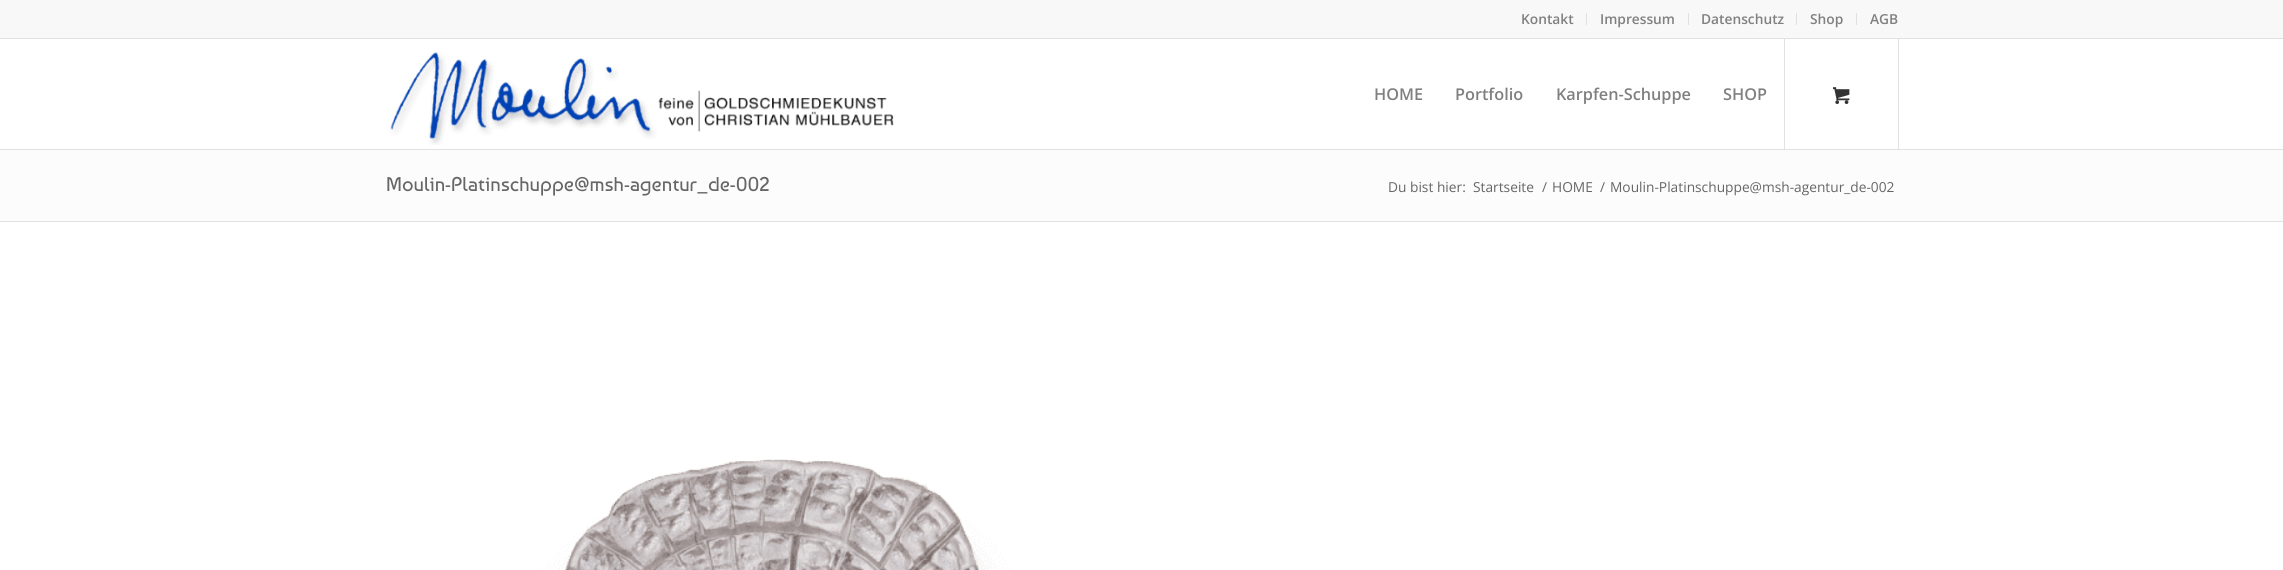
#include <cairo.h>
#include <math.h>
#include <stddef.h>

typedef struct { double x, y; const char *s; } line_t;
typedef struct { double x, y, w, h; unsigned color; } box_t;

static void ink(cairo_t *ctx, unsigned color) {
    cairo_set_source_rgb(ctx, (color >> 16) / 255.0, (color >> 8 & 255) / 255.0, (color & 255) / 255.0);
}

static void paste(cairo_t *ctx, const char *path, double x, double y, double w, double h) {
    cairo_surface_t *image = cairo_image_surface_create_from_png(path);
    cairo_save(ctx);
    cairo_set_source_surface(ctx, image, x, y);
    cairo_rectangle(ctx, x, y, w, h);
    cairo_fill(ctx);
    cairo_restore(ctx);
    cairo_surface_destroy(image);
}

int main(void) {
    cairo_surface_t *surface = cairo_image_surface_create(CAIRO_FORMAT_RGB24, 2283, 570);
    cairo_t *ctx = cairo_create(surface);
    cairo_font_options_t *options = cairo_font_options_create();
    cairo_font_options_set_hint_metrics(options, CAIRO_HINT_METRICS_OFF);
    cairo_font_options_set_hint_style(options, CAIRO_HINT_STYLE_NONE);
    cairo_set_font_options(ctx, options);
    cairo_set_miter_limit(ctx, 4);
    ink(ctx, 0xFFFFFF);
    cairo_paint(ctx);
    {
        static const box_t items[] = {
            {0, 0, 2283, 38, 0xF8F8F8},
            {0, 38, 2283, 1, 0xE1E1E1},
            {1586, 13, 1, 12, 0xE1E1E1},
        };
        for (size_t i = 0; i < sizeof items / sizeof *items; i++) {
            ink(ctx, items[i].color);
            cairo_rectangle(ctx, items[i].x, items[i].y, items[i].w, items[i].h);
            cairo_fill(ctx);
        }
    }
    cairo_select_font_face(ctx, "Open Sans SemiBold", CAIRO_FONT_SLANT_NORMAL, CAIRO_FONT_WEIGHT_NORMAL);
    cairo_set_font_size(ctx, 13.75);
    ink(ctx, 0x808080);
    cairo_move_to(ctx, 1521, 24);
    cairo_show_text(ctx, "Kontakt");
    ink(ctx, 0xE1E1E1);
    cairo_rectangle(ctx, 1688, 13, 1, 12);
    cairo_fill(ctx);
    ink(ctx, 0x808080);
    cairo_move_to(ctx, 1600, 24);
    cairo_show_text(ctx, "Impressum");
    ink(ctx, 0xE1E1E1);
    cairo_rectangle(ctx, 1796, 13, 1, 12);
    cairo_fill(ctx);
    ink(ctx, 0x808080);
    cairo_move_to(ctx, 1701, 24);
    cairo_show_text(ctx, "Datenschutz");
    ink(ctx, 0xE1E1E1);
    cairo_rectangle(ctx, 1856, 13, 1, 12);
    cairo_fill(ctx);
    ink(ctx, 0x808080);
    cairo_move_to(ctx, 1810, 24);
    cairo_show_text(ctx, "Shop");
    cairo_move_to(ctx, 1870, 24);
    cairo_show_text(ctx, "AGB");
    ink(ctx, 0xE1E1E1);
    cairo_rectangle(ctx, 0, 149, 2283, 1);
    cairo_fill(ctx);
    paste(ctx, "media/1.png", 390, 52, 504, 93);
    cairo_set_font_size(ctx, 16.25);
    ink(ctx, 0x808080);
    {
        static const line_t items[] = {
            {1374, 100, "HOME"},
            {1455, 100, "Portfolio"},
            {1556, 100, "Karpfen-Schuppe"},
            {1723, 100, "SHOP"},
        };
        for (size_t i = 0; i < sizeof items / sizeof *items; i++) {
            cairo_move_to(ctx, items[i].x, items[i].y);
            cairo_show_text(ctx, items[i].s);
        }
    }
    ink(ctx, 0xE1E1E1);
    cairo_rectangle(ctx, 1898, 39, 1, 110);
    cairo_fill(ctx);
    cairo_rectangle(ctx, 1784, 39, 1, 110);
    cairo_fill(ctx);
    paste(ctx, "media/2.png", 1833, 87, 17, 17);
    ink(ctx, 0xFCFCFC);
    cairo_rectangle(ctx, 0, 150, 2283, 71);
    cairo_fill(ctx);
    cairo_select_font_face(ctx, "Baumans", CAIRO_FONT_SLANT_NORMAL, CAIRO_FONT_WEIGHT_NORMAL);
    cairo_set_font_size(ctx, 20);
    ink(ctx, 0x666666);
    cairo_move_to(ctx, 386, 191);
    cairo_show_text(ctx, "Moulin-Platinschuppe@msh-agentur_de-002");
    cairo_select_font_face(ctx, "Open Sans", CAIRO_FONT_SLANT_NORMAL, CAIRO_FONT_WEIGHT_NORMAL);
    cairo_set_font_size(ctx, 13.75);
    {
        static const line_t items[] = {
            {1388, 192, "Du bist hier:"},
            {1473, 192, "Startseite"},
            {1542, 192, "/"},
            {1552, 192, "HOME"},
            {1600, 192, "/"},
            {1610, 192, "Moulin-Platinschuppe@msh-agentur_de-002"},
        };
        for (size_t i = 0; i < sizeof items / sizeof *items; i++) {
            cairo_move_to(ctx, items[i].x, items[i].y);
            cairo_show_text(ctx, items[i].s);
        }
    }
    ink(ctx, 0xE1E1E1);
    cairo_rectangle(ctx, 0, 221, 2283, 1);
    cairo_fill(ctx);
    paste(ctx, "media/3.png", 543, 459, 467, 111);
    cairo_surface_write_to_png(surface, "image.png");
    cairo_font_options_destroy(options);
    cairo_destroy(ctx);
    cairo_surface_destroy(surface);
    return 0;
}
